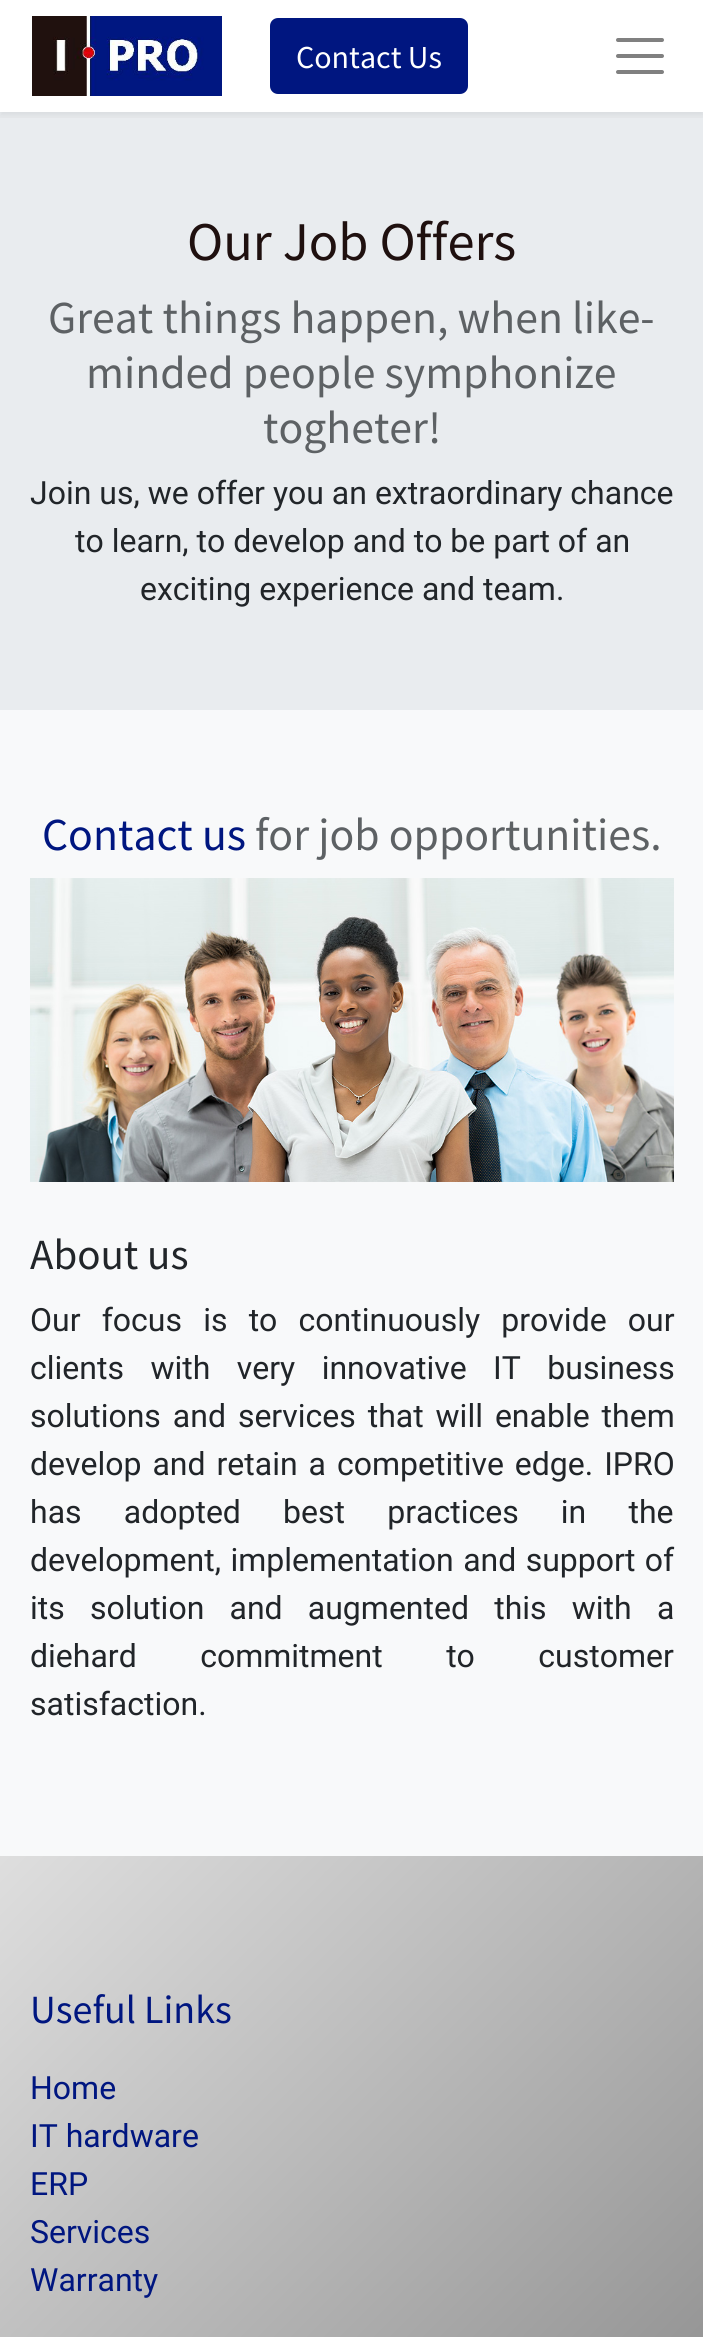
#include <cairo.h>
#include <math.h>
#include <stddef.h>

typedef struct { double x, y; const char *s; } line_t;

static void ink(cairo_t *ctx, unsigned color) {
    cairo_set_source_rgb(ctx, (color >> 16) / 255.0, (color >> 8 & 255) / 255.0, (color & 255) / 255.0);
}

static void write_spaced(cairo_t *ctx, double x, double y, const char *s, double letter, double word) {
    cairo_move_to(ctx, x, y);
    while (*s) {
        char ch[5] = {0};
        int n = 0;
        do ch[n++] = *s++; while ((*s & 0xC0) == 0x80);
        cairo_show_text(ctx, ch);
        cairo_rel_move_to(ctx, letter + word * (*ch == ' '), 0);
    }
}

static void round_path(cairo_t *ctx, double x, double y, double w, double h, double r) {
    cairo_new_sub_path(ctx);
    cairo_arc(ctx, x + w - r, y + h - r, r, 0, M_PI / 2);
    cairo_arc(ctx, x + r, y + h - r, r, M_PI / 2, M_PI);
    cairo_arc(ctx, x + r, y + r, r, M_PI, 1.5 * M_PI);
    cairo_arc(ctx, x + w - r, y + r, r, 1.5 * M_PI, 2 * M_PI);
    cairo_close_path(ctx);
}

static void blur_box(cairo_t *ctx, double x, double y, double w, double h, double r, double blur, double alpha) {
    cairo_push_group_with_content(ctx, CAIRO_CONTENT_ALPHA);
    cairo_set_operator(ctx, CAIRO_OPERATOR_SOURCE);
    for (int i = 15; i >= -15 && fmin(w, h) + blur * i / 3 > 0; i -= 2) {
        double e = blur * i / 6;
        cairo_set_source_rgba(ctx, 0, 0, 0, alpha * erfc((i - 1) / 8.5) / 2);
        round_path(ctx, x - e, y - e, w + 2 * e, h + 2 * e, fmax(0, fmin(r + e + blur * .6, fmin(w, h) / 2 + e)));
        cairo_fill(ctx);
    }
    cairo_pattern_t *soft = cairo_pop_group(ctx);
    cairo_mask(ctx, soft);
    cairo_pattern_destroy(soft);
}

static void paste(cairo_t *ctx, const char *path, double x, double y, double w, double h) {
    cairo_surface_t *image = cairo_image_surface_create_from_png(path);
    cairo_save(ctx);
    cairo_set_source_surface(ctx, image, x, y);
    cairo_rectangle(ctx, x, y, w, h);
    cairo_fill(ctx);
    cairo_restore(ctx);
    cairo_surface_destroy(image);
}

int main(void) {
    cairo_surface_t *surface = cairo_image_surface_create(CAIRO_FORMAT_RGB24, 703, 2337);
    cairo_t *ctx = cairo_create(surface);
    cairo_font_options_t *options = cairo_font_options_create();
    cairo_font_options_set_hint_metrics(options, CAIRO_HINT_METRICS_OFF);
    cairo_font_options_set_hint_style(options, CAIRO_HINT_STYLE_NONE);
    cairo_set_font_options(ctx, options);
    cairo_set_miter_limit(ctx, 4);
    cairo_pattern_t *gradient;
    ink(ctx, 0xFFFFFF);
    cairo_paint(ctx);
    ink(ctx, 0xE9ECEF);
    cairo_rectangle(ctx, 0, 112, 703, 598);
    cairo_fill(ctx);
    cairo_save(ctx);
    cairo_rectangle(ctx, 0, 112, 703, 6);
    cairo_clip(ctx);
    ink(ctx, 0x000000);
    blur_box(ctx, 0, 4, 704, 112, 0, 4, 0.07);
    cairo_restore(ctx);
    paste(ctx, "media/1.png", 32, 16, 190, 80);
    ink(ctx, 0x001680);
    round_path(ctx, 271, 19, 196, 74, 7);
    cairo_fill_preserve(ctx);
    cairo_stroke(ctx);
    cairo_select_font_face(ctx, "Source Sans Pro", CAIRO_FONT_SLANT_NORMAL, CAIRO_FONT_WEIGHT_NORMAL);
    cairo_set_font_size(ctx, 32);
    ink(ctx, 0xFFFFFF);
    cairo_move_to(ctx, 296, 68);
    cairo_show_text(ctx, "Contact Us");
    cairo_new_path(ctx);
    cairo_move_to(ctx, 618, 40);
    cairo_line_to(ctx, 662, 40);
    cairo_move_to(ctx, 618, 56);
    cairo_line_to(ctx, 662, 56);
    cairo_move_to(ctx, 618, 72);
    cairo_line_to(ctx, 662, 72);
    ink(ctx, 0x808080);
    cairo_set_line_width(ctx, 4);
    cairo_set_line_cap(ctx, CAIRO_LINE_CAP_ROUND);
    cairo_stroke(ctx);
    ink(ctx, 0xF8F9FA);
    cairo_rectangle(ctx, 0, 710, 703, 1146);
    cairo_fill(ctx);
    cairo_set_font_size(ctx, 54.5);
    ink(ctx, 0x1F100F);
    cairo_move_to(ctx, 187, 260);
    cairo_show_text(ctx, "Our Job Offers");
    cairo_set_font_size(ctx, 45.75);
    ink(ctx, 0x5D6164);
    {
        static const line_t items[] = {
            {48, 333, "Great things happen, when like-"},
            {86, 388, "minded people symphonize"},
            {263, 443, "togheter!"},
        };
        for (size_t i = 0; i < sizeof items / sizeof *items; i++) {
            cairo_move_to(ctx, items[i].x, items[i].y);
            cairo_show_text(ctx, items[i].s);
        }
    }
    cairo_select_font_face(ctx, "Roboto", CAIRO_FONT_SLANT_NORMAL, CAIRO_FONT_WEIGHT_NORMAL);
    cairo_set_font_size(ctx, 32);
    ink(ctx, 0x212529);
    {
        static const line_t items[] = {
            {30, 504, "Join us, we offer you an extraordinary chance"},
            {75, 552, "to learn, to develop and to be part of an"},
            {140, 600, "exciting experience and"},
            {483, 600, "team."},
        };
        for (size_t i = 0; i < sizeof items / sizeof *items; i++) {
            cairo_move_to(ctx, items[i].x, items[i].y);
            cairo_show_text(ctx, items[i].s);
        }
    }
    cairo_select_font_face(ctx, "Source Sans Pro", CAIRO_FONT_SLANT_NORMAL, CAIRO_FONT_WEIGHT_NORMAL);
    cairo_set_font_size(ctx, 45.75);
    ink(ctx, 0x001680);
    cairo_move_to(ctx, 42, 850);
    cairo_show_text(ctx, "Contact us");
    ink(ctx, 0x5D6164);
    cairo_move_to(ctx, 255, 850);
    cairo_show_text(ctx, "for job opportunities.");
    paste(ctx, "media/2.png", 30, 878, 644, 304);
    cairo_set_font_size(ctx, 43);
    ink(ctx, 0x212529);
    cairo_move_to(ctx, 30, 1269);
    cairo_show_text(ctx, "About us");
    cairo_select_font_face(ctx, "Roboto", CAIRO_FONT_SLANT_NORMAL, CAIRO_FONT_WEIGHT_NORMAL);
    cairo_set_font_size(ctx, 32);
    write_spaced(ctx, 30, 1331, "Our focus is to continuously provide our", 0, 13.25);
    write_spaced(ctx, 30, 1379, "clients with very innovative IT business", 0, 18.5);
    write_spaced(ctx, 30, 1427, "solutions and services that will enable them", 0, 4);
    write_spaced(ctx, 30, 1475, "develop and retain a competitive edge. IPRO", 0, 3);
    write_spaced(ctx, 30, 1523, "has adopted best practices in the", 0, 34.25);
    write_spaced(ctx, 30, 1571, "development, implementation and support of", 0, 1.5);
    write_spaced(ctx, 30, 1619, "its solution and augmented this with a", 0, 17.25);
    write_spaced(ctx, 30, 1667, "diehard commitment to customer", 0, 55.5);
    cairo_move_to(ctx, 30, 1715);
    cairo_show_text(ctx, "satisfaction.");
    gradient = cairo_pattern_create_linear(-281, 2137, 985, 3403);
    cairo_pattern_add_color_stop_rgba(gradient, 0, 0.871, 0.871, 0.871, 1);
    cairo_pattern_add_color_stop_rgba(gradient, 1, 0.271, 0.271, 0.271, 1);
    cairo_set_source(ctx, gradient);
    cairo_pattern_destroy(gradient);
    cairo_rectangle(ctx, 0, 1856, 703, 481);
    cairo_fill(ctx);
    cairo_select_font_face(ctx, "Source Sans Pro", CAIRO_FONT_SLANT_NORMAL, CAIRO_FONT_WEIGHT_NORMAL);
    cairo_set_font_size(ctx, 40);
    ink(ctx, 0x001680);
    cairo_move_to(ctx, 30, 2023);
    cairo_show_text(ctx, "Useful Links");
    cairo_select_font_face(ctx, "Roboto", CAIRO_FONT_SLANT_NORMAL, CAIRO_FONT_WEIGHT_NORMAL);
    cairo_set_font_size(ctx, 32);
    {
        static const line_t items[] = {
            {30, 2099, "Home"},
            {30, 2147, "IT hardware"},
            {30, 2195, "ERP"},
            {30, 2243, "Services"},
            {30, 2291, "Warranty"},
        };
        for (size_t i = 0; i < sizeof items / sizeof *items; i++) {
            cairo_move_to(ctx, items[i].x, items[i].y);
            cairo_show_text(ctx, items[i].s);
        }
    }
    cairo_surface_write_to_png(surface, "image.png");
    cairo_font_options_destroy(options);
    cairo_destroy(ctx);
    cairo_surface_destroy(surface);
    return 0;
}
